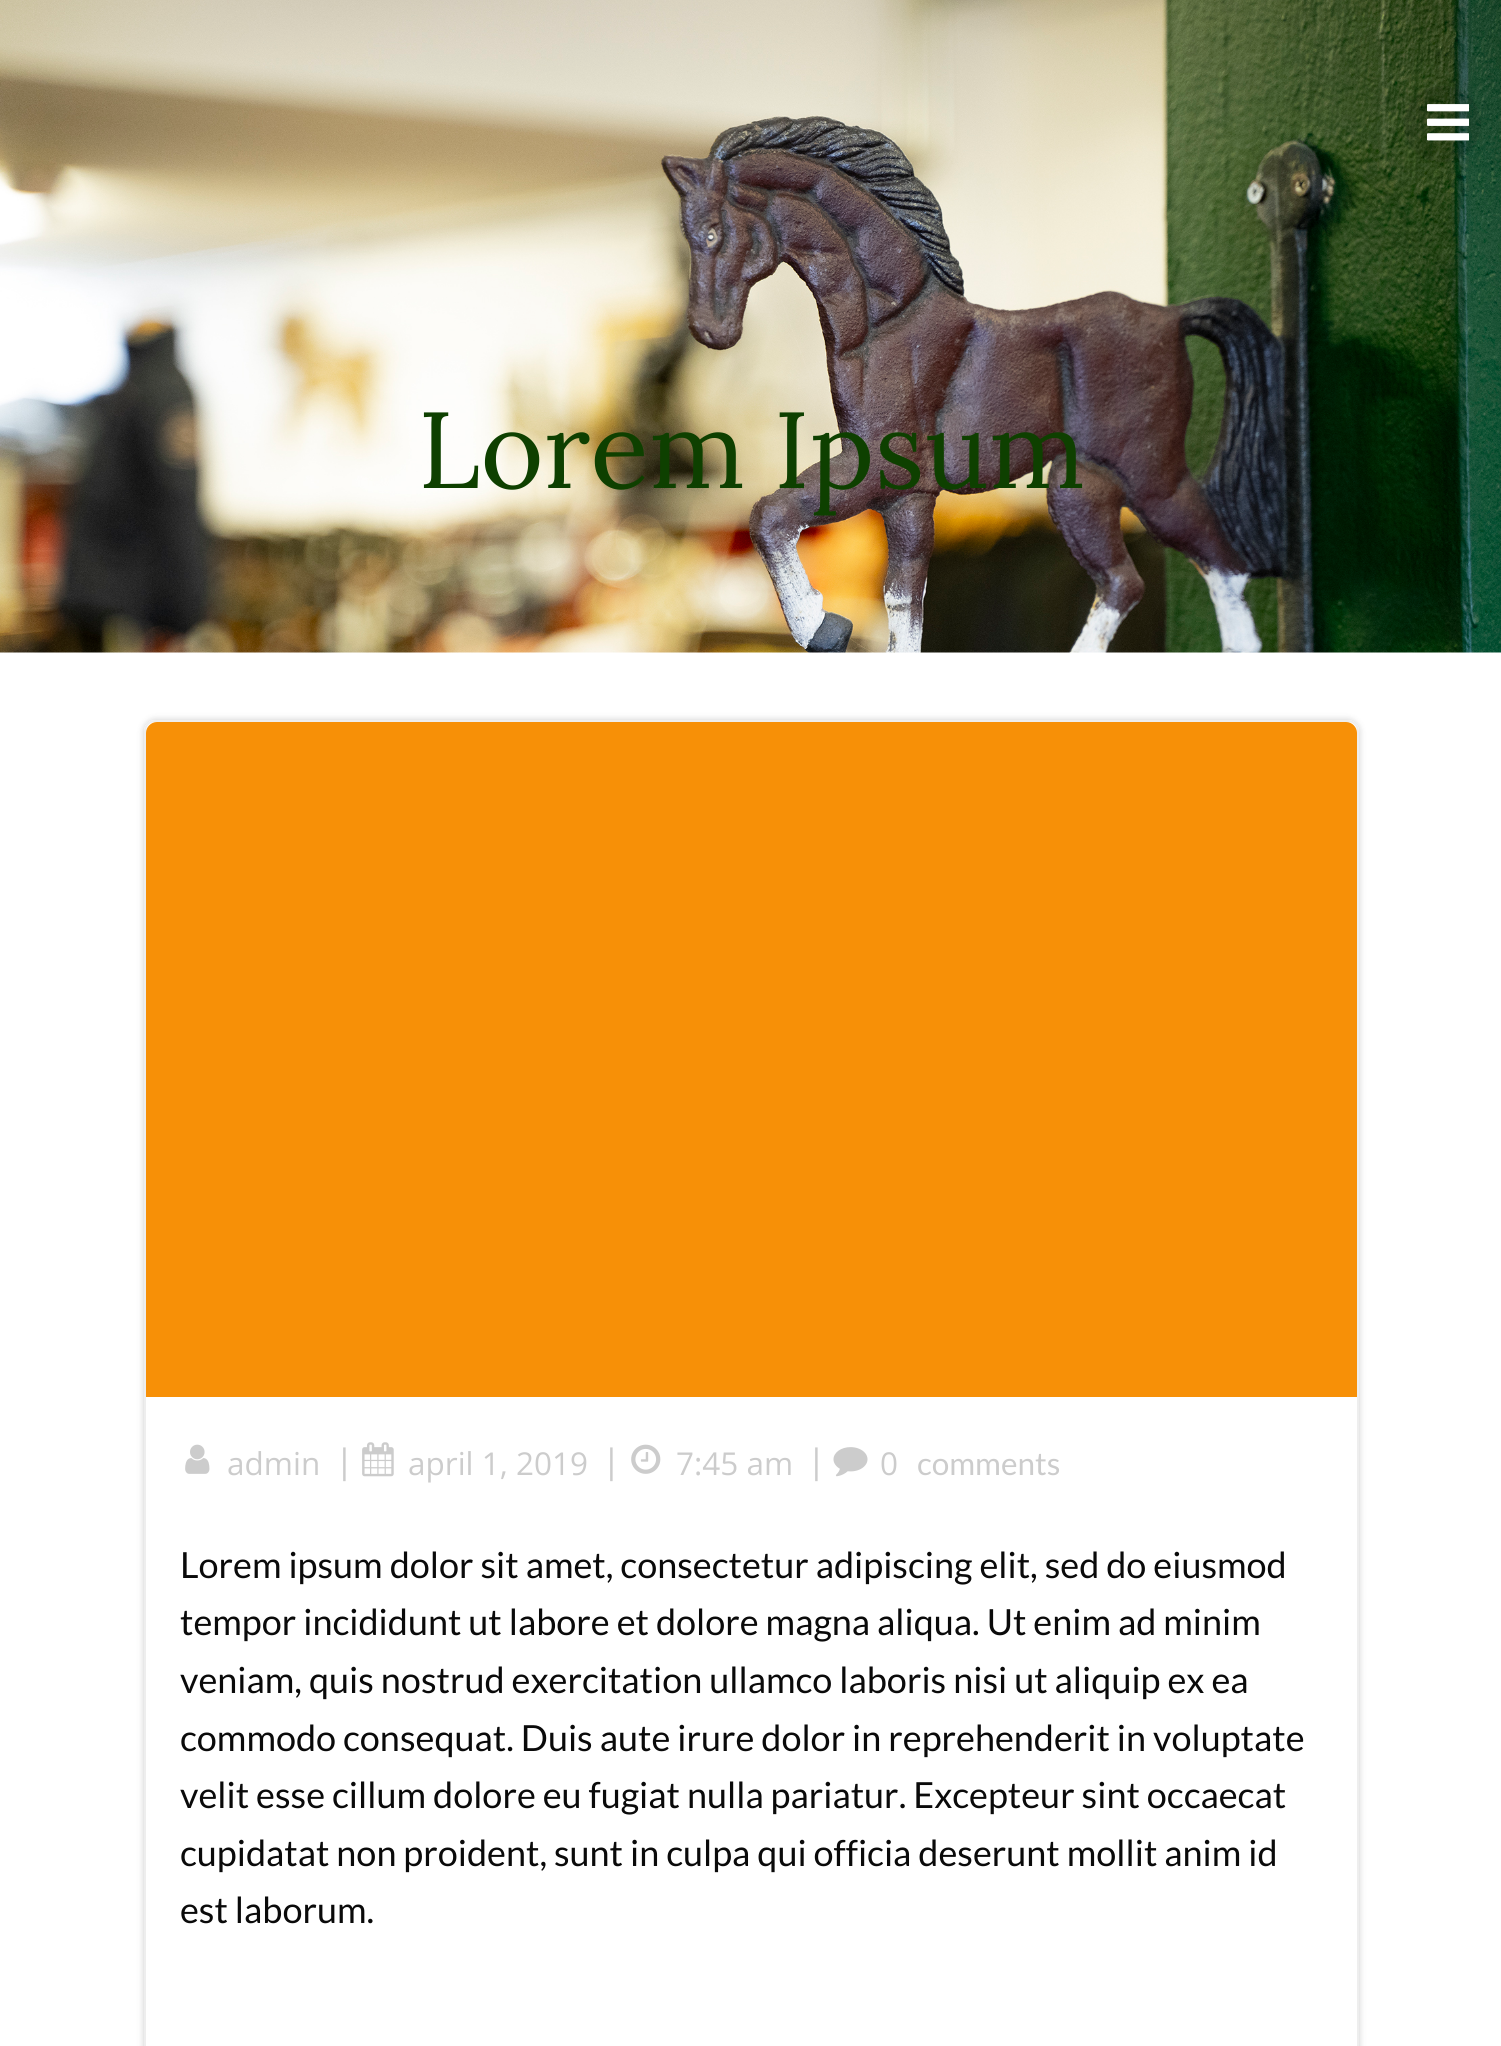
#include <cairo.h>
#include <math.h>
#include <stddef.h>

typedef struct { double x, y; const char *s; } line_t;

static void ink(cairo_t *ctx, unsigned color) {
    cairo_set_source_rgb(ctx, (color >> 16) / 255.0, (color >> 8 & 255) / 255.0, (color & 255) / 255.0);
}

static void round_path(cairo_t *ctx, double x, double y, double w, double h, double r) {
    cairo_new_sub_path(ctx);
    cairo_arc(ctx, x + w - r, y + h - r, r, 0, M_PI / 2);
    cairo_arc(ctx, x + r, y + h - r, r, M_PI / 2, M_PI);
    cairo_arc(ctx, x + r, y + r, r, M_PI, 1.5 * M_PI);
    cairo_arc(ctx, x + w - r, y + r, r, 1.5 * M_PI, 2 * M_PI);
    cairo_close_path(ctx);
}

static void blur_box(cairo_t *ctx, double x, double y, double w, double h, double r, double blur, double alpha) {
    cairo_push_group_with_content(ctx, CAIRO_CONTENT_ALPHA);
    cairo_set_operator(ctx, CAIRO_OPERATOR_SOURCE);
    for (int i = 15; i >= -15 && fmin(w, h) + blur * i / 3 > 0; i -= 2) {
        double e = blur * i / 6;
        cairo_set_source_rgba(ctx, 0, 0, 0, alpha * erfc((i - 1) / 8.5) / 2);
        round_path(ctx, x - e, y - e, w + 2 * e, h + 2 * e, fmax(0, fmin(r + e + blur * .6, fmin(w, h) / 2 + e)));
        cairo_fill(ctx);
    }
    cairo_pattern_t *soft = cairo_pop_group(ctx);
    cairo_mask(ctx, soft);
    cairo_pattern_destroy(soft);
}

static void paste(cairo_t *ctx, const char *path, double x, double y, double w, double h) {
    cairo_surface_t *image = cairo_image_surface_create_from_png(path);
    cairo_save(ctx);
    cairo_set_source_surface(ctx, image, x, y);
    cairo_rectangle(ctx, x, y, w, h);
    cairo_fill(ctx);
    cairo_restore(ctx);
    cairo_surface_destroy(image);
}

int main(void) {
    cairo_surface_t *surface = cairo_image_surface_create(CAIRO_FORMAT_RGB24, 1501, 2046);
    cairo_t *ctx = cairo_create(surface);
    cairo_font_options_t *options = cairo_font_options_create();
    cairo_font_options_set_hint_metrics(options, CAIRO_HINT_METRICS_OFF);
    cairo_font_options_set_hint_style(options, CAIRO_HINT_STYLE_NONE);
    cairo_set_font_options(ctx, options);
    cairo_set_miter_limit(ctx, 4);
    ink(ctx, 0xFFFFFF);
    cairo_paint(ctx);
    paste(ctx, "media/2.png", 0, 0, 1501, 653);
    cairo_set_source_rgba(ctx, 0, 0, 0, 0.1);
    round_path(ctx, 1404, 86, 77, 76, 38);
    cairo_fill(ctx);
    paste(ctx, "media/1.png", 1427, 104, 42, 37);
    cairo_select_font_face(ctx, "Lora", CAIRO_FONT_SLANT_NORMAL, CAIRO_FONT_WEIGHT_NORMAL);
    cairo_set_font_size(ctx, 108);
    ink(ctx, 0x0E4000);
    cairo_move_to(ctx, 418, 488);
    cairo_show_text(ctx, "Lorem Ipsum");
    cairo_save(ctx);
    cairo_set_fill_rule(ctx, CAIRO_FILL_RULE_EVEN_ODD);
    cairo_new_path(ctx);
    cairo_move_to(ctx, 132, 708);
    cairo_line_to(ctx, 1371, 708);
    cairo_line_to(ctx, 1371, 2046);
    cairo_line_to(ctx, 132, 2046);
    cairo_close_path(ctx);
    cairo_move_to(ctx, 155, 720);
    cairo_line_to(ctx, 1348, 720);
    cairo_curve_to(ctx, 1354, 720, 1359, 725, 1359, 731);
    cairo_line_to(ctx, 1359, 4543);
    cairo_curve_to(ctx, 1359, 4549, 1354, 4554, 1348, 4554);
    cairo_line_to(ctx, 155, 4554);
    cairo_curve_to(ctx, 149, 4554, 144, 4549, 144, 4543);
    cairo_line_to(ctx, 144, 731);
    cairo_curve_to(ctx, 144, 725, 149, 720, 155, 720);
    cairo_close_path(ctx);
    cairo_clip(ctx);
    ink(ctx, 0x000000);
    blur_box(ctx, 144, 720, 1215, 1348, 11, 3.5, 0.2);
    cairo_restore(ctx);
    round_path(ctx, 145, 721, 1213, 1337, 10);
    ink(ctx, 0xEEEEEE);
    cairo_stroke(ctx);
    ink(ctx, 0xF79007);
    cairo_new_path(ctx);
    cairo_move_to(ctx, 157, 722);
    cairo_line_to(ctx, 1346, 722);
    cairo_curve_to(ctx, 1352, 722, 1357, 727, 1357, 733);
    cairo_line_to(ctx, 1357, 1397);
    cairo_line_to(ctx, 146, 1397);
    cairo_line_to(ctx, 146, 733);
    cairo_curve_to(ctx, 146, 727, 151, 722, 157, 722);
    cairo_close_path(ctx);
    cairo_fill(ctx);
    paste(ctx, "media/3.png", 185, 1444, 25, 30);
    cairo_select_font_face(ctx, "Open Sans", CAIRO_FONT_SLANT_NORMAL, CAIRO_FONT_WEIGHT_NORMAL);
    cairo_set_font_size(ctx, 31.5);
    ink(ctx, 0xCCCCCC);
    cairo_move_to(ctx, 227, 1475);
    cairo_show_text(ctx, "admin");
    cairo_select_font_face(ctx, "Lato", CAIRO_FONT_SLANT_NORMAL, CAIRO_FONT_WEIGHT_NORMAL);
    cairo_set_font_size(ctx, 36);
    cairo_move_to(ctx, 339, 1475);
    cairo_show_text(ctx, "|");
    paste(ctx, "media/4.png", 362, 1442, 32, 35);
    cairo_select_font_face(ctx, "Open Sans", CAIRO_FONT_SLANT_NORMAL, CAIRO_FONT_WEIGHT_NORMAL);
    cairo_set_font_size(ctx, 31.5);
    cairo_move_to(ctx, 408, 1475);
    cairo_show_text(ctx, "april 1, 2019");
    cairo_select_font_face(ctx, "Lato", CAIRO_FONT_SLANT_NORMAL, CAIRO_FONT_WEIGHT_NORMAL);
    cairo_set_font_size(ctx, 36);
    cairo_move_to(ctx, 606, 1475);
    cairo_show_text(ctx, "|");
    paste(ctx, "media/5.png", 631, 1444, 30, 30);
    cairo_select_font_face(ctx, "Open Sans", CAIRO_FONT_SLANT_NORMAL, CAIRO_FONT_WEIGHT_NORMAL);
    cairo_set_font_size(ctx, 31.5);
    cairo_move_to(ctx, 676, 1475);
    cairo_show_text(ctx, "7:45 am");
    cairo_select_font_face(ctx, "Lato", CAIRO_FONT_SLANT_NORMAL, CAIRO_FONT_WEIGHT_NORMAL);
    cairo_set_font_size(ctx, 36);
    cairo_move_to(ctx, 811, 1475);
    cairo_show_text(ctx, "|");
    paste(ctx, "media/6.png", 833, 1447, 35, 30);
    cairo_select_font_face(ctx, "Open Sans", CAIRO_FONT_SLANT_NORMAL, CAIRO_FONT_WEIGHT_NORMAL);
    cairo_set_font_size(ctx, 31.5);
    cairo_move_to(ctx, 880, 1475);
    cairo_show_text(ctx, "0");
    cairo_select_font_face(ctx, "Lato", CAIRO_FONT_SLANT_NORMAL, CAIRO_FONT_WEIGHT_NORMAL);
    cairo_move_to(ctx, 917, 1475);
    cairo_show_text(ctx, "comments");
    cairo_set_font_size(ctx, 36);
    ink(ctx, 0x0A0A0A);
    {
        static const line_t items[] = {
            {180, 1578, "Lorem ipsum dolor sit amet, consectetur adipiscing elit, sed do eiusmod"},
            {180, 1635, "tempor incididunt ut labore et dolore magna aliqua. Ut enim ad minim"},
            {180, 1693, "veniam, quis nostrud exercitation ullamco laboris nisi ut aliquip ex ea"},
            {180, 1751, "commodo consequat. Duis aute irure dolor in reprehenderit in voluptate"},
            {180, 1808, "velit esse cillum dolore eu fugiat nulla pariatur. Excepteur sint occaecat"},
            {180, 1866, "cupidatat non proident, sunt in culpa qui officia deserunt mollit anim id"},
            {180, 1923, "est laborum."},
        };
        for (size_t i = 0; i < sizeof items / sizeof *items; i++) {
            cairo_move_to(ctx, items[i].x, items[i].y);
            cairo_show_text(ctx, items[i].s);
        }
    }
    cairo_surface_write_to_png(surface, "image.png");
    cairo_font_options_destroy(options);
    cairo_destroy(ctx);
    cairo_surface_destroy(surface);
    return 0;
}
